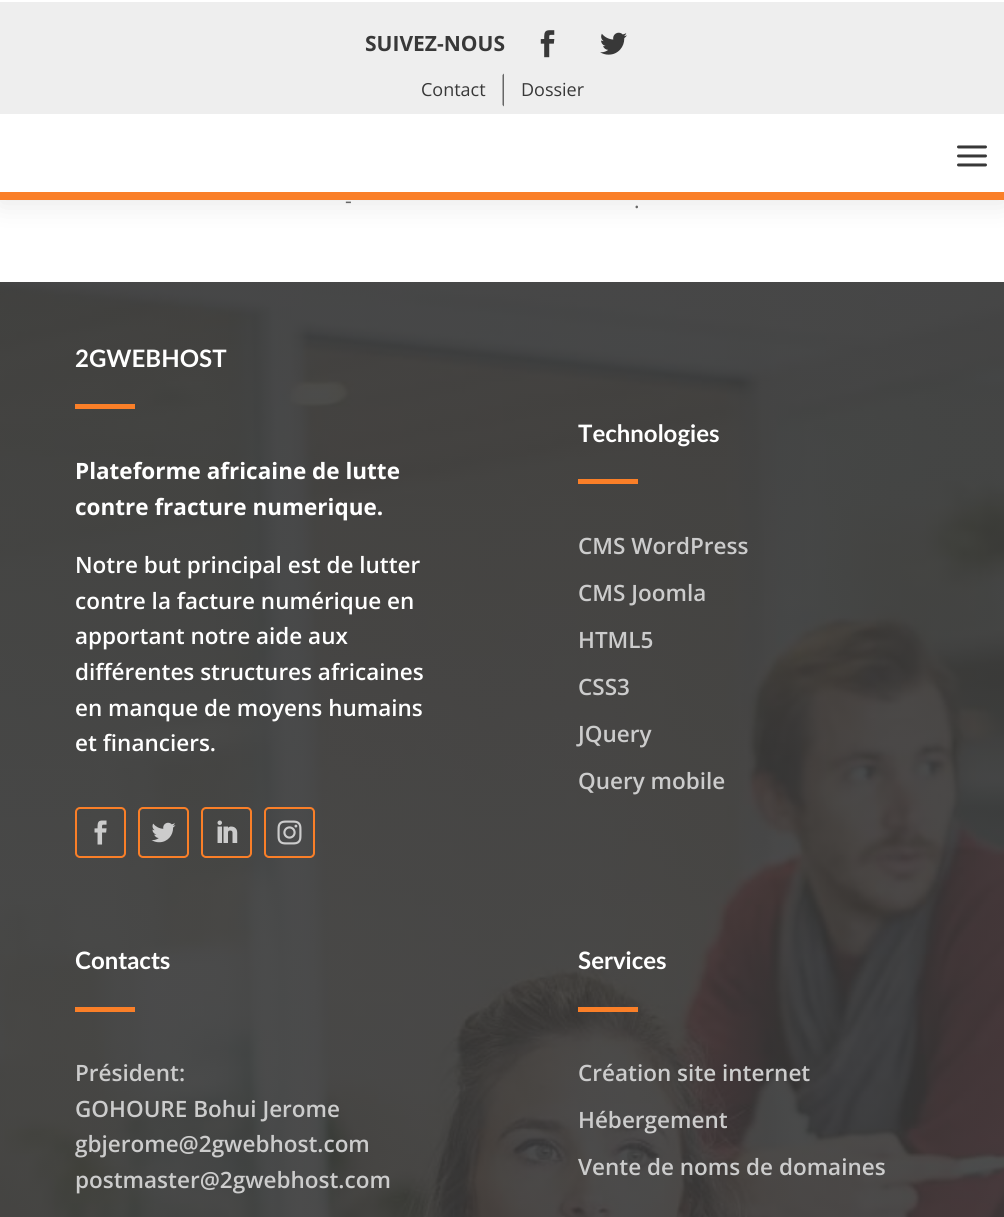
#include <cairo.h>
#include <math.h>
#include <stddef.h>

typedef struct { double x, y; const char *s; } line_t;
typedef struct { double x, y, w, h; unsigned color; } box_t;

static void ink(cairo_t *ctx, unsigned color) {
    cairo_set_source_rgb(ctx, (color >> 16) / 255.0, (color >> 8 & 255) / 255.0, (color & 255) / 255.0);
}

static void round_path(cairo_t *ctx, double x, double y, double w, double h, double r) {
    cairo_new_sub_path(ctx);
    cairo_arc(ctx, x + w - r, y + h - r, r, 0, M_PI / 2);
    cairo_arc(ctx, x + r, y + h - r, r, M_PI / 2, M_PI);
    cairo_arc(ctx, x + r, y + r, r, M_PI, 1.5 * M_PI);
    cairo_arc(ctx, x + w - r, y + r, r, 1.5 * M_PI, 2 * M_PI);
    cairo_close_path(ctx);
}

static void blur_box(cairo_t *ctx, double x, double y, double w, double h, double r, double blur, double alpha) {
    cairo_push_group_with_content(ctx, CAIRO_CONTENT_ALPHA);
    cairo_set_operator(ctx, CAIRO_OPERATOR_SOURCE);
    for (int i = 15; i >= -15 && fmin(w, h) + blur * i / 3 > 0; i -= 2) {
        double e = blur * i / 6;
        cairo_set_source_rgba(ctx, 0, 0, 0, alpha * erfc((i - 1) / 8.5) / 2);
        round_path(ctx, x - e, y - e, w + 2 * e, h + 2 * e, fmax(0, fmin(r + e + blur * .6, fmin(w, h) / 2 + e)));
        cairo_fill(ctx);
    }
    cairo_pattern_t *soft = cairo_pop_group(ctx);
    cairo_mask(ctx, soft);
    cairo_pattern_destroy(soft);
}

static void paste(cairo_t *ctx, const char *path, double x, double y, double w, double h) {
    cairo_surface_t *image = cairo_image_surface_create_from_png(path);
    cairo_save(ctx);
    cairo_set_source_surface(ctx, image, x, y);
    cairo_rectangle(ctx, x, y, w, h);
    cairo_fill(ctx);
    cairo_restore(ctx);
    cairo_surface_destroy(image);
}

int main(void) {
    cairo_surface_t *surface = cairo_image_surface_create(CAIRO_FORMAT_RGB24, 1004, 1217);
    cairo_t *ctx = cairo_create(surface);
    cairo_font_options_t *options = cairo_font_options_create();
    cairo_font_options_set_hint_metrics(options, CAIRO_HINT_METRICS_OFF);
    cairo_font_options_set_hint_style(options, CAIRO_HINT_STYLE_NONE);
    cairo_set_font_options(ctx, options);
    cairo_set_miter_limit(ctx, 4);
    ink(ctx, 0xFFFFFF);
    cairo_paint(ctx);
    ink(ctx, 0x000000);
    blur_box(ctx, 0, 3, 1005, 200, 0, 13.5, 0.1);
    {
        static const box_t items[] = {
            {0, 0, 1004, 192, 0xFFFFFF},
            {0, 192, 1004, 8, 0xFA7F28},
            {0, 2, 1004, 112, 0xEEEEEE},
        };
        for (size_t i = 0; i < sizeof items / sizeof *items; i++) {
            ink(ctx, items[i].color);
            cairo_rectangle(ctx, items[i].x, items[i].y, items[i].w, items[i].h);
            cairo_fill(ctx);
        }
    }
    cairo_select_font_face(ctx, "Open Sans", CAIRO_FONT_SLANT_NORMAL, CAIRO_FONT_WEIGHT_BOLD);
    cairo_set_font_size(ctx, 21);
    ink(ctx, 0x383838);
    cairo_move_to(ctx, 365, 51);
    cairo_show_text(ctx, "SUIVEZ-NOUS");
    paste(ctx, "media/1.png", 540, 30, 15, 28);
    paste(ctx, "media/2.png", 600, 32, 27, 23);
    ink(ctx, 0x666666);
    cairo_new_path(ctx);
    cairo_move_to(ctx, 504, 73.5);
    cairo_line_to(ctx, 504, 106.5);
    cairo_line_to(ctx, 502.5, 105);
    cairo_line_to(ctx, 502.5, 75);
    cairo_close_path(ctx);
    cairo_fill(ctx);
    cairo_select_font_face(ctx, "Open Sans", CAIRO_FONT_SLANT_NORMAL, CAIRO_FONT_WEIGHT_NORMAL);
    cairo_set_font_size(ctx, 18);
    ink(ctx, 0x383838);
    cairo_move_to(ctx, 421, 96);
    cairo_show_text(ctx, "Contact");
    cairo_move_to(ctx, 521, 96);
    cairo_show_text(ctx, "Dossier");
    paste(ctx, "media/3.png", 957, 145, 30, 22);
    cairo_set_font_size(ctx, 21);
    ink(ctx, 0x666666);
    cairo_move_to(ctx, 345, 208);
    cairo_show_text(ctx, "-");
    cairo_move_to(ctx, 634, 208);
    cairo_show_text(ctx, ".");
    paste(ctx, "media/4.png", 0, 282, 1004, 935);
    cairo_select_font_face(ctx, "Lato", CAIRO_FONT_SLANT_NORMAL, CAIRO_FONT_WEIGHT_BOLD);
    cairo_set_font_size(ctx, 24);
    ink(ctx, 0xFFFFFF);
    cairo_move_to(ctx, 75, 367);
    cairo_show_text(ctx, "2GWEBHOST");
    ink(ctx, 0xFA7F28);
    cairo_rectangle(ctx, 75, 404, 60, 5);
    cairo_fill(ctx);
    cairo_select_font_face(ctx, "Open Sans", CAIRO_FONT_SLANT_NORMAL, CAIRO_FONT_WEIGHT_BOLD);
    cairo_set_font_size(ctx, 22.5);
    ink(ctx, 0xFFFFFF);
    cairo_move_to(ctx, 75, 479);
    cairo_show_text(ctx, "Plateforme africaine de lutte");
    cairo_move_to(ctx, 75, 515);
    cairo_show_text(ctx, "contre fracture numerique.");
    cairo_select_font_face(ctx, "Open Sans SemiBold", CAIRO_FONT_SLANT_NORMAL, CAIRO_FONT_WEIGHT_NORMAL);
    {
        static const line_t items[] = {
            {75, 573, "Notre but principal est de lutter"},
            {75, 609, "contre la facture numérique en"},
            {75, 644, "apportant notre aide aux"},
            {75, 680, "différentes structures africaines"},
            {75, 716, "en manque de moyens humains"},
            {75, 751, "et financiers."},
        };
        for (size_t i = 0; i < sizeof items / sizeof *items; i++) {
            cairo_move_to(ctx, items[i].x, items[i].y);
            cairo_show_text(ctx, items[i].s);
        }
    }
    round_path(ctx, 76, 808, 49, 49, 4);
    ink(ctx, 0xFA7F28);
    cairo_stroke(ctx);
    paste(ctx, "media/5.png", 94, 820, 13, 25);
    round_path(ctx, 139, 808, 49, 49, 4);
    cairo_stroke(ctx);
    paste(ctx, "media/6.png", 151, 822, 25, 21);
    round_path(ctx, 202, 808, 49, 49, 4);
    cairo_stroke(ctx);
    paste(ctx, "media/7.png", 217, 820, 21, 23);
    round_path(ctx, 265, 808, 49, 49, 4);
    cairo_stroke(ctx);
    paste(ctx, "media/8.png", 277, 820, 25, 25);
    cairo_select_font_face(ctx, "Lato", CAIRO_FONT_SLANT_NORMAL, CAIRO_FONT_WEIGHT_BOLD);
    cairo_set_font_size(ctx, 24);
    ink(ctx, 0xFFFFFF);
    cairo_move_to(ctx, 578, 442);
    cairo_show_text(ctx, "Technologies");
    ink(ctx, 0xFA7F28);
    cairo_rectangle(ctx, 578, 479, 60, 5);
    cairo_fill(ctx);
    cairo_select_font_face(ctx, "Open Sans SemiBold", CAIRO_FONT_SLANT_NORMAL, CAIRO_FONT_WEIGHT_NORMAL);
    cairo_set_font_size(ctx, 22.5);
    ink(ctx, 0xCCCCCC);
    {
        static const line_t items[] = {
            {578, 554, "CMS WordPress"},
            {578, 601, "CMS Joomla"},
            {578, 648, "HTML5"},
            {578, 695, "CSS3"},
            {578, 742, "JQuery"},
            {578, 789, "Query mobile"},
        };
        for (size_t i = 0; i < sizeof items / sizeof *items; i++) {
            cairo_move_to(ctx, items[i].x, items[i].y);
            cairo_show_text(ctx, items[i].s);
        }
    }
    cairo_select_font_face(ctx, "Lato", CAIRO_FONT_SLANT_NORMAL, CAIRO_FONT_WEIGHT_BOLD);
    cairo_set_font_size(ctx, 24);
    ink(ctx, 0xFFFFFF);
    cairo_move_to(ctx, 75, 969);
    cairo_show_text(ctx, "Contacts");
    ink(ctx, 0xFA7F28);
    cairo_rectangle(ctx, 75, 1007, 60, 5);
    cairo_fill(ctx);
    cairo_select_font_face(ctx, "Open Sans SemiBold", CAIRO_FONT_SLANT_NORMAL, CAIRO_FONT_WEIGHT_NORMAL);
    cairo_set_font_size(ctx, 22.5);
    ink(ctx, 0xCCCCCC);
    {
        static const line_t items[] = {
            {75, 1081, "Président:"},
            {75, 1117, "GOHOURE Bohui Jerome"},
            {75, 1152, "gbjerome@2gwebhost.com"},
            {75, 1188, "postmaster@2gwebhost.com"},
        };
        for (size_t i = 0; i < sizeof items / sizeof *items; i++) {
            cairo_move_to(ctx, items[i].x, items[i].y);
            cairo_show_text(ctx, items[i].s);
        }
    }
    cairo_select_font_face(ctx, "Lato", CAIRO_FONT_SLANT_NORMAL, CAIRO_FONT_WEIGHT_BOLD);
    cairo_set_font_size(ctx, 24);
    ink(ctx, 0xFFFFFF);
    cairo_move_to(ctx, 578, 969);
    cairo_show_text(ctx, "Services");
    ink(ctx, 0xFA7F28);
    cairo_rectangle(ctx, 578, 1007, 60, 5);
    cairo_fill(ctx);
    cairo_select_font_face(ctx, "Open Sans SemiBold", CAIRO_FONT_SLANT_NORMAL, CAIRO_FONT_WEIGHT_NORMAL);
    cairo_set_font_size(ctx, 22.5);
    ink(ctx, 0xCCCCCC);
    {
        static const line_t items[] = {
            {578, 1081, "Création site internet"},
            {578, 1128, "Hébergement"},
            {578, 1175, "Vente de noms de domaines"},
        };
        for (size_t i = 0; i < sizeof items / sizeof *items; i++) {
            cairo_move_to(ctx, items[i].x, items[i].y);
            cairo_show_text(ctx, items[i].s);
        }
    }
    cairo_surface_write_to_png(surface, "image.png");
    cairo_font_options_destroy(options);
    cairo_destroy(ctx);
    cairo_surface_destroy(surface);
    return 0;
}
